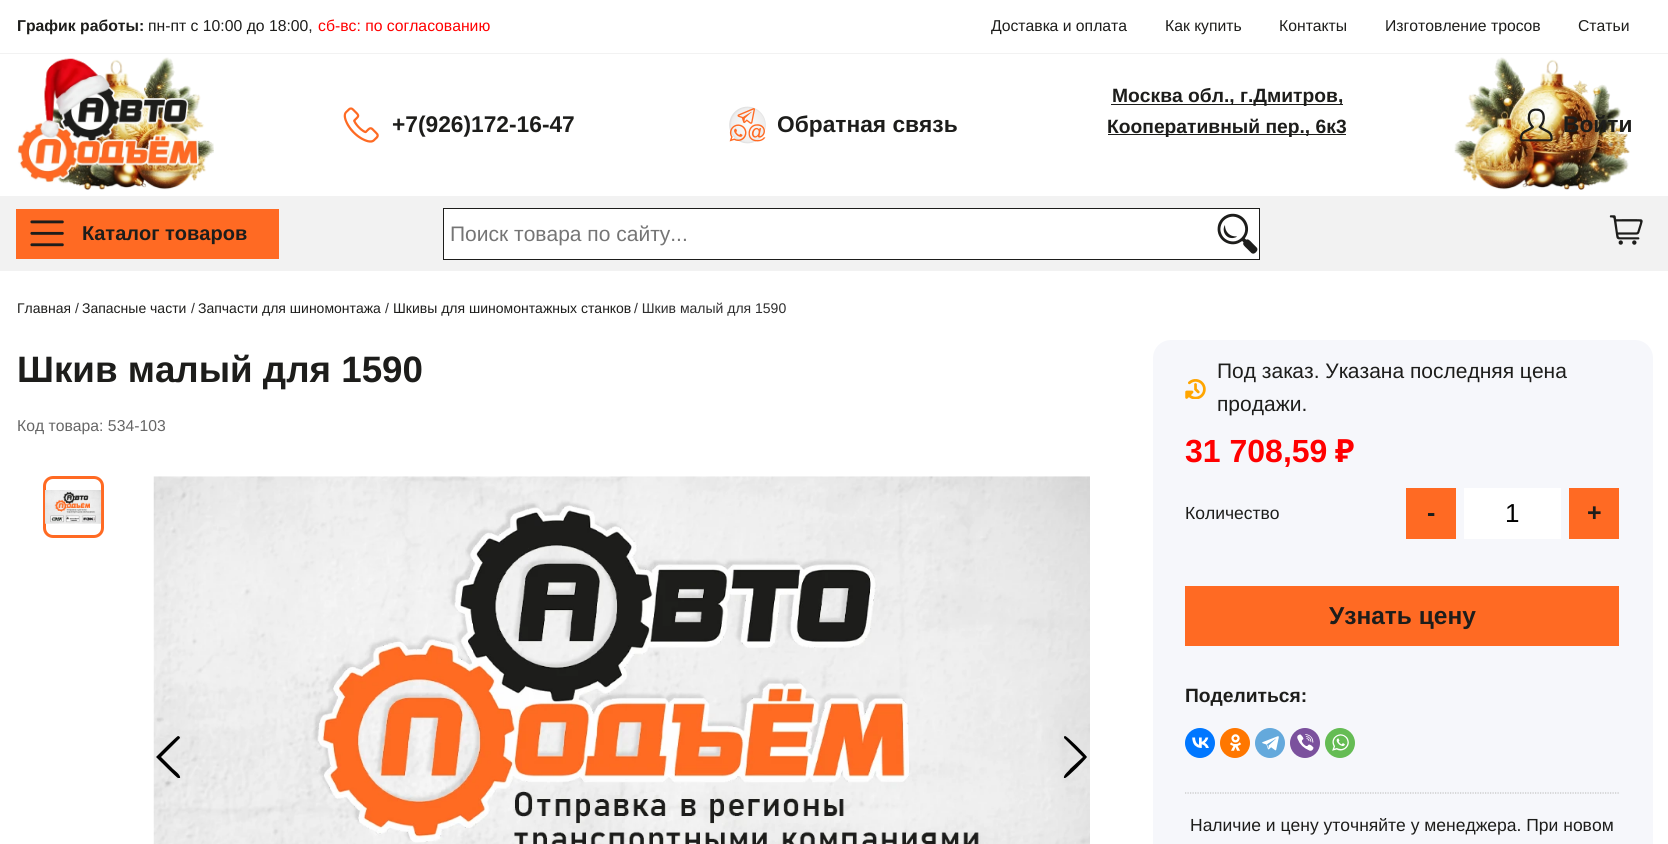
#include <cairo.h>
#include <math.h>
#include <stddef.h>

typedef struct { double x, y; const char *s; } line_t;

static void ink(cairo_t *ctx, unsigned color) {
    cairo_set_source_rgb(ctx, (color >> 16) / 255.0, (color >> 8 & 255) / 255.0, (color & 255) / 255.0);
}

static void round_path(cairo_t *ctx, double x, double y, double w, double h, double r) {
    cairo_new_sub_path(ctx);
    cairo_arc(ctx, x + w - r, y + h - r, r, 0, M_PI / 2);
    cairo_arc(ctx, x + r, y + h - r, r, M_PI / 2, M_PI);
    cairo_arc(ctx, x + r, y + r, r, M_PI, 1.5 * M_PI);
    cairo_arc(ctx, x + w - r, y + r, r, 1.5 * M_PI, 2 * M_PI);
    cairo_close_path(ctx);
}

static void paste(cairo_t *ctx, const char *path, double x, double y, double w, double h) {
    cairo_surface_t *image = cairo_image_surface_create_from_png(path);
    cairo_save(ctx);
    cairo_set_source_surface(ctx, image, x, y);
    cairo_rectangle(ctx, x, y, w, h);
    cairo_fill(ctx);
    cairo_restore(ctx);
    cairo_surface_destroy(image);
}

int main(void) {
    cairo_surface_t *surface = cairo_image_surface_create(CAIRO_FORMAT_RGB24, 1668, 844);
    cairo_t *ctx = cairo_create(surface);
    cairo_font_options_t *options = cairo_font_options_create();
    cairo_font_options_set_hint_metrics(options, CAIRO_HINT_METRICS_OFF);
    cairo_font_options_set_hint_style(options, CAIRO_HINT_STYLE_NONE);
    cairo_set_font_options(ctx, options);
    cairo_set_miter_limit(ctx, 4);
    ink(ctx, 0xFFFFFF);
    cairo_paint(ctx);
    ink(ctx, 0xF2F2F2);
    cairo_rectangle(ctx, 0, 53, 1668, 1);
    cairo_fill(ctx);
    cairo_select_font_face(ctx, "Liberation Sans", CAIRO_FONT_SLANT_NORMAL, CAIRO_FONT_WEIGHT_BOLD);
    cairo_set_font_size(ctx, 15.75);
    ink(ctx, 0x1D1D1B);
    cairo_move_to(ctx, 17, 31);
    cairo_show_text(ctx, "График работы:");
    cairo_select_font_face(ctx, "Liberation Sans", CAIRO_FONT_SLANT_NORMAL, CAIRO_FONT_WEIGHT_NORMAL);
    cairo_move_to(ctx, 148, 31);
    cairo_show_text(ctx, "пн-пт с 10:00 до 18:00,");
    ink(ctx, 0xFF0000);
    cairo_move_to(ctx, 318, 31);
    cairo_show_text(ctx, "сб-вс: по согласованию");
    ink(ctx, 0x1D1D1B);
    {
        static const line_t items[] = {
            {991, 31, "Доставка и оплата"},
            {1165, 31, "Как купить"},
            {1279, 31, "Контакты"},
            {1385, 31, "Изготовление тросов"},
            {1578, 31, "Статьи"},
        };
        for (size_t i = 0; i < sizeof items / sizeof *items; i++) {
            cairo_move_to(ctx, items[i].x, items[i].y);
            cairo_show_text(ctx, items[i].s);
        }
    }
    paste(ctx, "media/1.png", 52, 57, 162, 133);
    paste(ctx, "media/2.png", 1454, 57, 176, 133);
    paste(ctx, "media/3.png", 17, 58, 182, 125);
    paste(ctx, "media/4.png", 343, 107, 36, 36);
    cairo_select_font_face(ctx, "Liberation Sans", CAIRO_FONT_SLANT_NORMAL, CAIRO_FONT_WEIGHT_BOLD);
    cairo_set_font_size(ctx, 22.75);
    cairo_move_to(ctx, 392, 132);
    cairo_show_text(ctx, "+7(926)172-16-47");
    paste(ctx, "media/5.png", 729, 106, 37, 38);
    cairo_move_to(ctx, 777, 132);
    cairo_show_text(ctx, "Обратная связь");
    cairo_rectangle(ctx, 1111, 104, 232, 1);
    cairo_fill(ctx);
    cairo_set_font_size(ctx, 19.25);
    cairo_move_to(ctx, 1112, 102);
    cairo_show_text(ctx, "Москва обл., г.Дмитров,");
    cairo_rectangle(ctx, 1108, 134, 238, 1);
    cairo_fill(ctx);
    cairo_move_to(ctx, 1107, 133);
    cairo_show_text(ctx, "Кооперативный пер., 6к3");
    paste(ctx, "media/6.png", 1519, 108, 34, 34);
    cairo_set_font_size(ctx, 22.75);
    cairo_move_to(ctx, 1563, 132);
    cairo_show_text(ctx, "Войти");
    ink(ctx, 0xF2F2F2);
    cairo_rectangle(ctx, 0, 196, 1668, 75);
    cairo_fill(ctx);
    ink(ctx, 0xFF6A23);
    cairo_rectangle(ctx, 16, 209, 263, 50);
    cairo_fill(ctx);
    paste(ctx, "media/7.png", 30, 220, 34, 27);
    cairo_set_font_size(ctx, 20);
    ink(ctx, 0x1D1D1B);
    cairo_move_to(ctx, 82, 240);
    cairo_show_text(ctx, "Каталог товаров");
    ink(ctx, 0xFFFFFF);
    cairo_rectangle(ctx, 443.5, 208.5, 816, 51);
    cairo_fill_preserve(ctx);
    ink(ctx, 0x1D1D1B);
    cairo_set_line_width(ctx, 1);
    cairo_stroke(ctx);
    cairo_select_font_face(ctx, "Liberation Sans", CAIRO_FONT_SLANT_NORMAL, CAIRO_FONT_WEIGHT_NORMAL);
    cairo_set_font_size(ctx, 21);
    ink(ctx, 0x757575);
    cairo_move_to(ctx, 450, 241);
    cairo_show_text(ctx, "Поиск товара по сайту...");
    paste(ctx, "media/8.png", 1217, 213, 41, 41);
    paste(ctx, "media/9.png", 1609, 215, 34, 30);
    cairo_set_font_size(ctx, 14);
    ink(ctx, 0x1D1D1B);
    cairo_move_to(ctx, 17, 313);
    cairo_show_text(ctx, "Главная");
    ink(ctx, 0x2E2E2E);
    cairo_move_to(ctx, 75, 313);
    cairo_show_text(ctx, "/");
    ink(ctx, 0x1D1D1B);
    cairo_move_to(ctx, 82, 313);
    cairo_show_text(ctx, "Запасные части");
    ink(ctx, 0x2E2E2E);
    cairo_move_to(ctx, 191, 313);
    cairo_show_text(ctx, "/");
    ink(ctx, 0x1D1D1B);
    cairo_move_to(ctx, 198, 313);
    cairo_show_text(ctx, "Запчасти для шиномонтажа");
    ink(ctx, 0x2E2E2E);
    cairo_move_to(ctx, 385, 313);
    cairo_show_text(ctx, "/");
    ink(ctx, 0x1D1D1B);
    cairo_move_to(ctx, 393, 313);
    cairo_show_text(ctx, "Шкивы для шиномонтажных станков");
    ink(ctx, 0x2E2E2E);
    cairo_move_to(ctx, 634, 313);
    cairo_show_text(ctx, "/ Шкив малый для 1590");
    cairo_select_font_face(ctx, "Liberation Sans", CAIRO_FONT_SLANT_NORMAL, CAIRO_FONT_WEIGHT_BOLD);
    cairo_set_font_size(ctx, 36.75);
    ink(ctx, 0x1D1D1B);
    cairo_move_to(ctx, 17, 382);
    cairo_show_text(ctx, "Шкив малый для 1590");
    cairo_select_font_face(ctx, "Liberation Sans", CAIRO_FONT_SLANT_NORMAL, CAIRO_FONT_WEIGHT_NORMAL);
    cairo_set_font_size(ctx, 15.75);
    ink(ctx, 0x666666);
    cairo_move_to(ctx, 17, 431);
    cairo_show_text(ctx, "Код товара: 534-103");
    round_path(ctx, 44.5, 477.5, 58, 59, 8.5);
    ink(ctx, 0xFF6A23);
    cairo_set_line_width(ctx, 3);
    cairo_stroke(ctx);
    paste(ctx, "media/10.png", 45, 490, 57, 34);
    paste(ctx, "media/11.png", 153, 476, 937, 368);
    ink(ctx, 0x000000);
    cairo_set_fill_rule(ctx, CAIRO_FILL_RULE_EVEN_ODD);
    cairo_new_path(ctx);
    cairo_move_to(ctx, 161, 757);
    cairo_line_to(ctx, 173, 769);
    cairo_curve_to(ctx, 174, 770, 181, 775, 180, 778);
    cairo_line_to(ctx, 178, 778);
    cairo_curve_to(ctx, 177, 778, 159, 760, 156, 757);
    cairo_curve_to(ctx, 159, 754, 177, 736, 178, 736);
    cairo_curve_to(ctx, 179, 736, 180, 737, 180, 738);
    cairo_close_path(ctx);
    cairo_fill(ctx);
    cairo_new_path(ctx);
    cairo_move_to(ctx, 1083, 757);
    cairo_line_to(ctx, 1070, 769);
    cairo_curve_to(ctx, 1070, 770, 1063, 775, 1064, 778);
    cairo_line_to(ctx, 1065, 778);
    cairo_curve_to(ctx, 1067, 778, 1085, 760, 1087, 757);
    cairo_curve_to(ctx, 1085, 754, 1067, 736, 1065, 736);
    cairo_curve_to(ctx, 1064, 736, 1064, 737, 1064, 738);
    cairo_close_path(ctx);
    cairo_fill(ctx);
    ink(ctx, 0xF6F7FB);
    round_path(ctx, 1153, 340, 500, 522, 18);
    cairo_fill(ctx);
    paste(ctx, "media/12.png", 1185, 379, 21, 20);
    cairo_set_font_size(ctx, 21);
    ink(ctx, 0x1D1D1B);
    cairo_move_to(ctx, 1217, 378);
    cairo_show_text(ctx, "Под заказ. Указана последняя цена");
    cairo_move_to(ctx, 1217, 411);
    cairo_show_text(ctx, "продажи.");
    cairo_select_font_face(ctx, "Liberation Sans", CAIRO_FONT_SLANT_NORMAL, CAIRO_FONT_WEIGHT_BOLD);
    cairo_set_font_size(ctx, 32);
    ink(ctx, 0xFF0000);
    cairo_move_to(ctx, 1185, 462);
    cairo_show_text(ctx, "31 708,59");
    cairo_select_font_face(ctx, "Noto Sans", CAIRO_FONT_SLANT_NORMAL, CAIRO_FONT_WEIGHT_BOLD);
    cairo_move_to(ctx, 1335, 462);
    cairo_show_text(ctx, "₽");
    cairo_select_font_face(ctx, "Liberation Sans", CAIRO_FONT_SLANT_NORMAL, CAIRO_FONT_WEIGHT_NORMAL);
    cairo_set_font_size(ctx, 17.5);
    ink(ctx, 0x1D1D1B);
    cairo_move_to(ctx, 1185, 519);
    cairo_show_text(ctx, "Количество");
    ink(ctx, 0xFF6A23);
    cairo_rectangle(ctx, 1406, 488, 50, 51);
    cairo_fill(ctx);
    cairo_select_font_face(ctx, "Liberation Sans", CAIRO_FONT_SLANT_NORMAL, CAIRO_FONT_WEIGHT_BOLD);
    cairo_set_font_size(ctx, 25);
    ink(ctx, 0x1D1D1B);
    cairo_move_to(ctx, 1427, 521);
    cairo_show_text(ctx, "-");
    ink(ctx, 0xFFFFFF);
    cairo_rectangle(ctx, 1464, 488, 97, 51);
    cairo_fill(ctx);
    cairo_select_font_face(ctx, "Liberation Sans", CAIRO_FONT_SLANT_NORMAL, CAIRO_FONT_WEIGHT_NORMAL);
    cairo_set_font_size(ctx, 26);
    ink(ctx, 0x000000);
    cairo_move_to(ctx, 1505, 522);
    cairo_show_text(ctx, "1");
    ink(ctx, 0xFF6A23);
    cairo_rectangle(ctx, 1569, 488, 50, 51);
    cairo_fill(ctx);
    cairo_select_font_face(ctx, "Liberation Sans", CAIRO_FONT_SLANT_NORMAL, CAIRO_FONT_WEIGHT_BOLD);
    cairo_set_font_size(ctx, 25);
    ink(ctx, 0x1D1D1B);
    cairo_move_to(ctx, 1587, 521);
    cairo_show_text(ctx, "+");
    ink(ctx, 0xFF6A23);
    cairo_rectangle(ctx, 1185, 586, 434, 60);
    cairo_fill(ctx);
    cairo_set_font_size(ctx, 24.5);
    ink(ctx, 0x1D1D1B);
    cairo_move_to(ctx, 1329, 624);
    cairo_show_text(ctx, "Узнать цену");
    cairo_set_font_size(ctx, 19.25);
    cairo_move_to(ctx, 1185, 702);
    cairo_show_text(ctx, "Поделиться:");
    ink(ctx, 0x0077FF);
    cairo_new_path(ctx);
    cairo_arc(ctx, 1200, 743, 15, 0, 2 * M_PI);
    cairo_fill(ctx);
    paste(ctx, "media/13.png", 1192, 737, 17, 11);
    ink(ctx, 0xFF7700);
    cairo_arc(ctx, 1235, 743, 15, 0, 2 * M_PI);
    cairo_fill(ctx);
    paste(ctx, "media/14.png", 1230, 734, 12, 17);
    ink(ctx, 0x64A9DC);
    cairo_arc(ctx, 1270, 743, 15, 0, 2 * M_PI);
    cairo_fill(ctx);
    paste(ctx, "media/15.png", 1262, 736, 17, 15);
    ink(ctx, 0x7B519D);
    cairo_arc(ctx, 1305, 743, 15, 0, 2 * M_PI);
    cairo_fill(ctx);
    paste(ctx, "media/16.png", 1297, 734, 17, 17);
    ink(ctx, 0x65BC54);
    cairo_arc(ctx, 1340, 743, 15, 0, 2 * M_PI);
    cairo_fill(ctx);
    paste(ctx, "media/17.png", 1332, 734, 17, 17);
    cairo_new_path(ctx);
    cairo_move_to(ctx, 1185, 793);
    cairo_line_to(ctx, 1619, 793);
    ink(ctx, 0xC4C4C4);
    cairo_set_line_width(ctx, 1.2);
    cairo_set_dash(ctx, (double[]){1.25, 1.25}, 2, 0);
    cairo_stroke(ctx);
    cairo_select_font_face(ctx, "Liberation Sans", CAIRO_FONT_SLANT_NORMAL, CAIRO_FONT_WEIGHT_NORMAL);
    cairo_set_font_size(ctx, 17.5);
    ink(ctx, 0x1D1D1B);
    cairo_move_to(ctx, 1190, 831);
    cairo_show_text(ctx, "Наличие и цену уточняйте у менеджера. При новом");
    cairo_surface_write_to_png(surface, "image.png");
    cairo_font_options_destroy(options);
    cairo_destroy(ctx);
    cairo_surface_destroy(surface);
    return 0;
}
